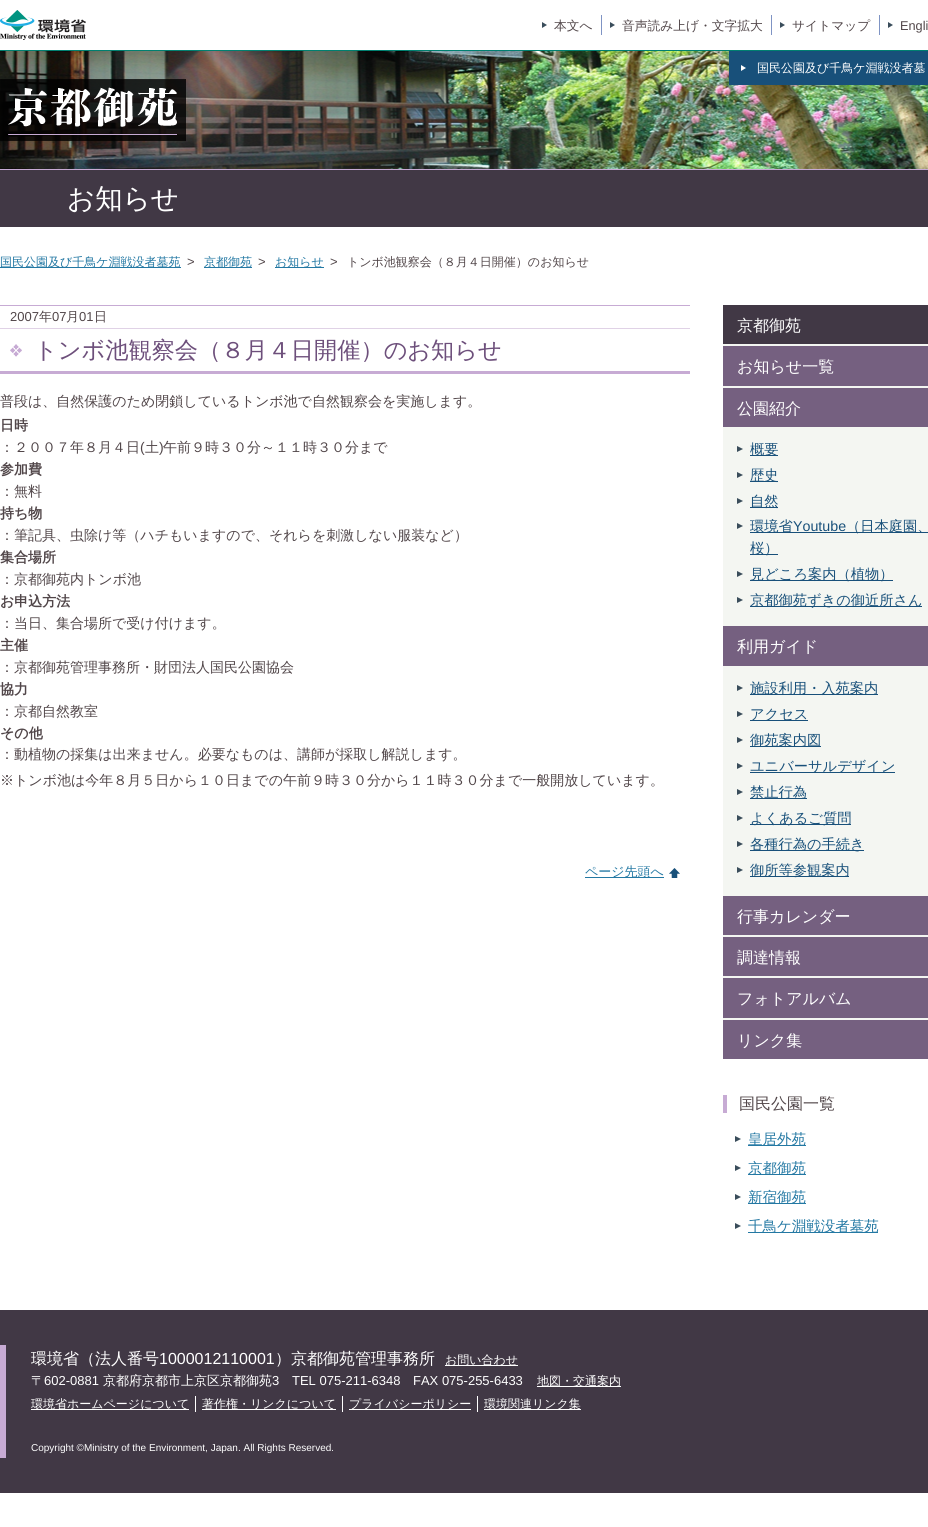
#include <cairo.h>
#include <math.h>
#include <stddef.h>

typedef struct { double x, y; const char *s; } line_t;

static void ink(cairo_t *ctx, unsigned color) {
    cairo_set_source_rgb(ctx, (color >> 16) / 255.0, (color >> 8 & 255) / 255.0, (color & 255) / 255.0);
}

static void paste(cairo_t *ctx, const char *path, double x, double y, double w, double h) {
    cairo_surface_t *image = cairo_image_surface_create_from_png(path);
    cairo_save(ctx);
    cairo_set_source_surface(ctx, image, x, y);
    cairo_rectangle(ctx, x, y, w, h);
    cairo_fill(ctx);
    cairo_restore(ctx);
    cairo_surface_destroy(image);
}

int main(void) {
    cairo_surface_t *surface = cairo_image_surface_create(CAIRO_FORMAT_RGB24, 928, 1527);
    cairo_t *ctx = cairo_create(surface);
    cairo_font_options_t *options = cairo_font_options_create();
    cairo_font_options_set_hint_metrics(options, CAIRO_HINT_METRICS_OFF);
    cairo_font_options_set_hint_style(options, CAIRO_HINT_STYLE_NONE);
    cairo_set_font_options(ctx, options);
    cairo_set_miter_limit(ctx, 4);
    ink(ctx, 0xFFFFFF);
    cairo_paint(ctx);
    ink(ctx, 0x008070);
    cairo_rectangle(ctx, 0, 50, 928, 1);
    cairo_fill(ctx);
    paste(ctx, "media/1.png", 0, 10, 86, 30);
    ink(ctx, 0x3A4D5B);
    cairo_new_path(ctx);
    cairo_move_to(ctx, 542, 28);
    cairo_line_to(ctx, 542, 22);
    cairo_line_to(ctx, 547, 25);
    cairo_close_path(ctx);
    cairo_fill(ctx);
    cairo_select_font_face(ctx, "WenQuanYi Zen Hei Medium", CAIRO_FONT_SLANT_NORMAL, CAIRO_FONT_WEIGHT_NORMAL);
    cairo_set_font_size(ctx, 12.75);
    ink(ctx, 0x514649);
    cairo_move_to(ctx, 554, 30);
    cairo_show_text(ctx, "本文へ");
    ink(ctx, 0x7F94C4);
    cairo_rectangle(ctx, 601, 15, 1, 20);
    cairo_fill(ctx);
    ink(ctx, 0x3A4D5B);
    cairo_new_path(ctx);
    cairo_move_to(ctx, 610, 28);
    cairo_line_to(ctx, 610, 22);
    cairo_line_to(ctx, 615, 25);
    cairo_close_path(ctx);
    cairo_fill(ctx);
    ink(ctx, 0x514649);
    cairo_move_to(ctx, 622, 30);
    cairo_show_text(ctx, "音声読み上げ・文字拡大");
    ink(ctx, 0x7F94C4);
    cairo_rectangle(ctx, 771, 15, 1, 20);
    cairo_fill(ctx);
    ink(ctx, 0x3A4D5B);
    cairo_new_path(ctx);
    cairo_move_to(ctx, 780, 28);
    cairo_line_to(ctx, 780, 22);
    cairo_line_to(ctx, 785, 25);
    cairo_close_path(ctx);
    cairo_fill(ctx);
    ink(ctx, 0x514649);
    cairo_move_to(ctx, 792, 30);
    cairo_show_text(ctx, "サイトマップ");
    ink(ctx, 0x7F94C4);
    cairo_rectangle(ctx, 879, 15, 1, 20);
    cairo_fill(ctx);
    ink(ctx, 0x3A4D5B);
    cairo_new_path(ctx);
    cairo_move_to(ctx, 888, 28);
    cairo_line_to(ctx, 888, 22);
    cairo_line_to(ctx, 893, 25);
    cairo_close_path(ctx);
    cairo_fill(ctx);
    cairo_select_font_face(ctx, "Liberation Sans", CAIRO_FONT_SLANT_NORMAL, CAIRO_FONT_WEIGHT_NORMAL);
    ink(ctx, 0x514649);
    cairo_move_to(ctx, 900, 30);
    cairo_show_text(ctx, "Engli");
    paste(ctx, "media/2.png", 0, 51, 928, 118);
    ink(ctx, 0x18507A);
    cairo_rectangle(ctx, 729, 51, 199, 34);
    cairo_fill(ctx);
    ink(ctx, 0xFFFFFF);
    cairo_new_path(ctx);
    cairo_move_to(ctx, 741, 71);
    cairo_line_to(ctx, 741, 65);
    cairo_line_to(ctx, 746, 68);
    cairo_close_path(ctx);
    cairo_fill(ctx);
    cairo_select_font_face(ctx, "WenQuanYi Zen Hei Medium", CAIRO_FONT_SLANT_NORMAL, CAIRO_FONT_WEIGHT_NORMAL);
    cairo_set_font_size(ctx, 12);
    cairo_move_to(ctx, 757, 72);
    cairo_show_text(ctx, "国民公園及び千鳥ケ淵戦没者墓");
    paste(ctx, "media/3.png", 0, 79, 186, 62);
    ink(ctx, 0x413845);
    cairo_rectangle(ctx, 0, 170, 928, 57);
    cairo_fill(ctx);
    ink(ctx, 0xC7ABD4);
    cairo_rectangle(ctx, 0, 169, 928, 1);
    cairo_fill(ctx);
    cairo_set_font_size(ctx, 27.5);
    ink(ctx, 0xFFFFFF);
    cairo_move_to(ctx, 67, 208);
    cairo_show_text(ctx, "お知らせ");
    ink(ctx, 0x2378A3);
    cairo_rectangle(ctx, 0, 267, 181, 1);
    cairo_fill(ctx);
    cairo_set_font_size(ctx, 12);
    cairo_move_to(ctx, 0, 266);
    cairo_show_text(ctx, "国民公園及び千鳥ケ淵戦没者墓苑");
    cairo_select_font_face(ctx, "Liberation Sans", CAIRO_FONT_SLANT_NORMAL, CAIRO_FONT_WEIGHT_NORMAL);
    cairo_set_font_size(ctx, 13);
    ink(ctx, 0x514649);
    cairo_move_to(ctx, 187, 266);
    cairo_show_text(ctx, ">");
    ink(ctx, 0x2378A3);
    cairo_rectangle(ctx, 204, 267, 48, 1);
    cairo_fill(ctx);
    cairo_select_font_face(ctx, "WenQuanYi Zen Hei Medium", CAIRO_FONT_SLANT_NORMAL, CAIRO_FONT_WEIGHT_NORMAL);
    cairo_set_font_size(ctx, 12);
    cairo_move_to(ctx, 204, 266);
    cairo_show_text(ctx, "京都御苑");
    cairo_select_font_face(ctx, "Liberation Sans", CAIRO_FONT_SLANT_NORMAL, CAIRO_FONT_WEIGHT_NORMAL);
    cairo_set_font_size(ctx, 13);
    ink(ctx, 0x514649);
    cairo_move_to(ctx, 258, 266);
    cairo_show_text(ctx, ">");
    ink(ctx, 0x2378A3);
    cairo_rectangle(ctx, 275, 267, 49, 1);
    cairo_fill(ctx);
    cairo_select_font_face(ctx, "WenQuanYi Zen Hei Medium", CAIRO_FONT_SLANT_NORMAL, CAIRO_FONT_WEIGHT_NORMAL);
    cairo_set_font_size(ctx, 12);
    cairo_move_to(ctx, 275, 266);
    cairo_show_text(ctx, "お知らせ");
    cairo_select_font_face(ctx, "Liberation Sans", CAIRO_FONT_SLANT_NORMAL, CAIRO_FONT_WEIGHT_NORMAL);
    cairo_set_font_size(ctx, 13);
    ink(ctx, 0x514649);
    cairo_move_to(ctx, 330, 266);
    cairo_show_text(ctx, ">");
    cairo_select_font_face(ctx, "WenQuanYi Zen Hei Medium", CAIRO_FONT_SLANT_NORMAL, CAIRO_FONT_WEIGHT_NORMAL);
    cairo_set_font_size(ctx, 12);
    cairo_move_to(ctx, 347, 266);
    cairo_show_text(ctx, "トンボ池観察会（８月４日開催）のお知らせ");
    ink(ctx, 0xC7ABD4);
    cairo_rectangle(ctx, 0, 305, 690, 1);
    cairo_fill(ctx);
    cairo_select_font_face(ctx, "Liberation Sans", CAIRO_FONT_SLANT_NORMAL, CAIRO_FONT_WEIGHT_NORMAL);
    cairo_set_font_size(ctx, 13);
    ink(ctx, 0x514649);
    cairo_move_to(ctx, 10, 321);
    cairo_show_text(ctx, "2007");
    cairo_select_font_face(ctx, "WenQuanYi Zen Hei Medium", CAIRO_FONT_SLANT_NORMAL, CAIRO_FONT_WEIGHT_NORMAL);
    cairo_move_to(ctx, 39, 321);
    cairo_show_text(ctx, "年");
    cairo_select_font_face(ctx, "Liberation Sans", CAIRO_FONT_SLANT_NORMAL, CAIRO_FONT_WEIGHT_NORMAL);
    cairo_move_to(ctx, 52, 321);
    cairo_show_text(ctx, "07");
    cairo_select_font_face(ctx, "WenQuanYi Zen Hei Medium", CAIRO_FONT_SLANT_NORMAL, CAIRO_FONT_WEIGHT_NORMAL);
    cairo_move_to(ctx, 66, 321);
    cairo_show_text(ctx, "月");
    cairo_select_font_face(ctx, "Liberation Sans", CAIRO_FONT_SLANT_NORMAL, CAIRO_FONT_WEIGHT_NORMAL);
    cairo_move_to(ctx, 79, 321);
    cairo_show_text(ctx, "01");
    cairo_select_font_face(ctx, "WenQuanYi Zen Hei Medium", CAIRO_FONT_SLANT_NORMAL, CAIRO_FONT_WEIGHT_NORMAL);
    cairo_move_to(ctx, 94, 321);
    cairo_show_text(ctx, "日");
    paste(ctx, "media/4.png", 10, 344, 12, 13);
    ink(ctx, 0xE0D2E6);
    cairo_rectangle(ctx, 0, 328, 690, 1);
    cairo_fill(ctx);
    ink(ctx, 0xC7ABD4);
    cairo_rectangle(ctx, 0, 371, 690, 3);
    cairo_fill(ctx);
    cairo_set_font_size(ctx, 23.2);
    ink(ctx, 0x6D4F7B);
    cairo_move_to(ctx, 34, 358);
    cairo_show_text(ctx, "トンボ池観察会（８月４日開催）のお知らせ");
    cairo_set_font_size(ctx, 14);
    ink(ctx, 0x514649);
    cairo_move_to(ctx, 0, 406);
    cairo_show_text(ctx, "普段は、自然保護のため閉鎖しているトンボ池で自然観察会を実施します。");
    cairo_select_font_face(ctx, "WenQuanYi Zen Hei", CAIRO_FONT_SLANT_NORMAL, CAIRO_FONT_WEIGHT_BOLD);
    cairo_move_to(ctx, 0, 430);
    cairo_show_text(ctx, "日時");
    cairo_select_font_face(ctx, "WenQuanYi Zen Hei Medium", CAIRO_FONT_SLANT_NORMAL, CAIRO_FONT_WEIGHT_NORMAL);
    cairo_move_to(ctx, 0, 452);
    cairo_show_text(ctx, "：２００７年８月４日");
    cairo_select_font_face(ctx, "Liberation Sans", CAIRO_FONT_SLANT_NORMAL, CAIRO_FONT_WEIGHT_NORMAL);
    cairo_move_to(ctx, 140, 452);
    cairo_show_text(ctx, "(");
    cairo_select_font_face(ctx, "WenQuanYi Zen Hei Medium", CAIRO_FONT_SLANT_NORMAL, CAIRO_FONT_WEIGHT_NORMAL);
    cairo_move_to(ctx, 145, 452);
    cairo_show_text(ctx, "土");
    cairo_select_font_face(ctx, "Liberation Sans", CAIRO_FONT_SLANT_NORMAL, CAIRO_FONT_WEIGHT_NORMAL);
    cairo_move_to(ctx, 159, 452);
    cairo_show_text(ctx, ")");
    cairo_select_font_face(ctx, "WenQuanYi Zen Hei Medium", CAIRO_FONT_SLANT_NORMAL, CAIRO_FONT_WEIGHT_NORMAL);
    cairo_move_to(ctx, 163, 452);
    cairo_show_text(ctx, "午前９時３０分～１１時３０分まで");
    cairo_select_font_face(ctx, "WenQuanYi Zen Hei", CAIRO_FONT_SLANT_NORMAL, CAIRO_FONT_WEIGHT_BOLD);
    cairo_move_to(ctx, 0, 474);
    cairo_show_text(ctx, "参加費");
    cairo_select_font_face(ctx, "WenQuanYi Zen Hei Medium", CAIRO_FONT_SLANT_NORMAL, CAIRO_FONT_WEIGHT_NORMAL);
    cairo_move_to(ctx, 0, 496);
    cairo_show_text(ctx, "：無料");
    cairo_select_font_face(ctx, "WenQuanYi Zen Hei", CAIRO_FONT_SLANT_NORMAL, CAIRO_FONT_WEIGHT_BOLD);
    cairo_move_to(ctx, 0, 518);
    cairo_show_text(ctx, "持ち物");
    cairo_select_font_face(ctx, "WenQuanYi Zen Hei Medium", CAIRO_FONT_SLANT_NORMAL, CAIRO_FONT_WEIGHT_NORMAL);
    cairo_move_to(ctx, 0, 540);
    cairo_show_text(ctx, "：筆記具、虫除け等（ハチもいますので、それらを刺激しない服装など）");
    cairo_select_font_face(ctx, "WenQuanYi Zen Hei", CAIRO_FONT_SLANT_NORMAL, CAIRO_FONT_WEIGHT_BOLD);
    cairo_move_to(ctx, 0, 562);
    cairo_show_text(ctx, "集合場所");
    cairo_select_font_face(ctx, "WenQuanYi Zen Hei Medium", CAIRO_FONT_SLANT_NORMAL, CAIRO_FONT_WEIGHT_NORMAL);
    cairo_move_to(ctx, 0, 584);
    cairo_show_text(ctx, "：京都御苑内トンボ池");
    cairo_select_font_face(ctx, "WenQuanYi Zen Hei", CAIRO_FONT_SLANT_NORMAL, CAIRO_FONT_WEIGHT_BOLD);
    cairo_move_to(ctx, 0, 606);
    cairo_show_text(ctx, "お申込方法");
    cairo_select_font_face(ctx, "WenQuanYi Zen Hei Medium", CAIRO_FONT_SLANT_NORMAL, CAIRO_FONT_WEIGHT_NORMAL);
    cairo_move_to(ctx, 0, 628);
    cairo_show_text(ctx, "：当日、集合場所で受け付けます。");
    cairo_select_font_face(ctx, "WenQuanYi Zen Hei", CAIRO_FONT_SLANT_NORMAL, CAIRO_FONT_WEIGHT_BOLD);
    cairo_move_to(ctx, 0, 650);
    cairo_show_text(ctx, "主催");
    cairo_select_font_face(ctx, "WenQuanYi Zen Hei Medium", CAIRO_FONT_SLANT_NORMAL, CAIRO_FONT_WEIGHT_NORMAL);
    cairo_move_to(ctx, 0, 672);
    cairo_show_text(ctx, "：京都御苑管理事務所・財団法人国民公園協会");
    cairo_select_font_face(ctx, "WenQuanYi Zen Hei", CAIRO_FONT_SLANT_NORMAL, CAIRO_FONT_WEIGHT_BOLD);
    cairo_move_to(ctx, 0, 694);
    cairo_show_text(ctx, "協力");
    cairo_select_font_face(ctx, "WenQuanYi Zen Hei Medium", CAIRO_FONT_SLANT_NORMAL, CAIRO_FONT_WEIGHT_NORMAL);
    cairo_move_to(ctx, 0, 716);
    cairo_show_text(ctx, "：京都自然教室");
    cairo_select_font_face(ctx, "WenQuanYi Zen Hei", CAIRO_FONT_SLANT_NORMAL, CAIRO_FONT_WEIGHT_BOLD);
    cairo_move_to(ctx, 0, 738);
    cairo_show_text(ctx, "その他");
    cairo_select_font_face(ctx, "WenQuanYi Zen Hei Medium", CAIRO_FONT_SLANT_NORMAL, CAIRO_FONT_WEIGHT_NORMAL);
    cairo_move_to(ctx, 0, 759);
    cairo_show_text(ctx, "：動植物の採集は出来ません。必要なものは、講師が採取し解説します。");
    cairo_move_to(ctx, 0, 785);
    cairo_show_text(ctx, "※トンボ池は今年８月５日から１０日までの午前９時３０分から１１時３０分まで一般開放しています。");
    paste(ctx, "media/5.png", 669, 868, 11, 10);
    ink(ctx, 0x2378A3);
    cairo_rectangle(ctx, 585, 877, 79, 1);
    cairo_fill(ctx);
    cairo_set_font_size(ctx, 13);
    cairo_move_to(ctx, 585, 876);
    cairo_show_text(ctx, "ページ先頭へ");
    ink(ctx, 0xF4F6F2);
    cairo_rectangle(ctx, 723, 344, 205, 676);
    cairo_fill(ctx);
    ink(ctx, 0x413845);
    cairo_rectangle(ctx, 723, 305, 205, 39);
    cairo_fill(ctx);
    cairo_set_font_size(ctx, 16);
    ink(ctx, 0xFFFFFF);
    cairo_move_to(ctx, 737, 331);
    cairo_show_text(ctx, "京都御苑");
    ink(ctx, 0x756080);
    cairo_rectangle(ctx, 723, 346, 205, 40);
    cairo_fill(ctx);
    ink(ctx, 0xFFFFFF);
    cairo_move_to(ctx, 737, 372);
    cairo_show_text(ctx, "お知らせ一覧");
    ink(ctx, 0x756080);
    cairo_rectangle(ctx, 723, 388, 205, 39);
    cairo_fill(ctx);
    ink(ctx, 0xFFFFFF);
    cairo_move_to(ctx, 737, 414);
    cairo_show_text(ctx, "公園紹介");
    ink(ctx, 0x3A4D5B);
    cairo_new_path(ctx);
    cairo_move_to(ctx, 737, 452);
    cairo_line_to(ctx, 737, 446);
    cairo_line_to(ctx, 743, 449);
    cairo_close_path(ctx);
    cairo_fill(ctx);
    ink(ctx, 0x18507A);
    cairo_rectangle(ctx, 750, 455, 28, 1);
    cairo_fill(ctx);
    cairo_set_font_size(ctx, 14.25);
    cairo_move_to(ctx, 750, 454);
    cairo_show_text(ctx, "概要");
    ink(ctx, 0x3A4D5B);
    cairo_new_path(ctx);
    cairo_move_to(ctx, 737, 478);
    cairo_line_to(ctx, 737, 472);
    cairo_line_to(ctx, 743, 475);
    cairo_close_path(ctx);
    cairo_fill(ctx);
    ink(ctx, 0x18507A);
    cairo_rectangle(ctx, 750, 481, 28, 1);
    cairo_fill(ctx);
    cairo_move_to(ctx, 750, 480);
    cairo_show_text(ctx, "歴史");
    ink(ctx, 0x3A4D5B);
    cairo_new_path(ctx);
    cairo_move_to(ctx, 737, 504);
    cairo_line_to(ctx, 737, 498);
    cairo_line_to(ctx, 743, 501);
    cairo_close_path(ctx);
    cairo_fill(ctx);
    ink(ctx, 0x18507A);
    cairo_rectangle(ctx, 750, 507, 28, 1);
    cairo_fill(ctx);
    cairo_move_to(ctx, 750, 506);
    cairo_show_text(ctx, "自然");
    ink(ctx, 0x3A4D5B);
    cairo_new_path(ctx);
    cairo_move_to(ctx, 737, 529);
    cairo_line_to(ctx, 737, 523);
    cairo_line_to(ctx, 743, 526);
    cairo_close_path(ctx);
    cairo_fill(ctx);
    ink(ctx, 0x18507A);
    cairo_rectangle(ctx, 750, 532, 178, 1);
    cairo_fill(ctx);
    cairo_move_to(ctx, 750, 531);
    cairo_show_text(ctx, "環境省");
    cairo_select_font_face(ctx, "Liberation Sans", CAIRO_FONT_SLANT_NORMAL, CAIRO_FONT_WEIGHT_NORMAL);
    cairo_move_to(ctx, 793, 531);
    cairo_show_text(ctx, "Youtube");
    cairo_select_font_face(ctx, "WenQuanYi Zen Hei Medium", CAIRO_FONT_SLANT_NORMAL, CAIRO_FONT_WEIGHT_NORMAL);
    cairo_move_to(ctx, 846, 531);
    cairo_show_text(ctx, "（日本庭園、");
    cairo_rectangle(ctx, 750, 554, 28, 1);
    cairo_fill(ctx);
    cairo_move_to(ctx, 750, 553);
    cairo_show_text(ctx, "桜）");
    ink(ctx, 0x3A4D5B);
    cairo_new_path(ctx);
    cairo_move_to(ctx, 737, 577);
    cairo_line_to(ctx, 737, 571);
    cairo_line_to(ctx, 743, 574);
    cairo_close_path(ctx);
    cairo_fill(ctx);
    ink(ctx, 0x18507A);
    cairo_rectangle(ctx, 750, 580, 143, 1);
    cairo_fill(ctx);
    cairo_move_to(ctx, 750, 579);
    cairo_show_text(ctx, "見どころ案内（植物）");
    ink(ctx, 0x3A4D5B);
    cairo_new_path(ctx);
    cairo_move_to(ctx, 737, 603);
    cairo_line_to(ctx, 737, 597);
    cairo_line_to(ctx, 743, 600);
    cairo_close_path(ctx);
    cairo_fill(ctx);
    ink(ctx, 0x18507A);
    cairo_rectangle(ctx, 750, 606, 172, 1);
    cairo_fill(ctx);
    cairo_move_to(ctx, 750, 605);
    cairo_show_text(ctx, "京都御苑ずきの御近所さん");
    ink(ctx, 0x756080);
    cairo_rectangle(ctx, 723, 626, 205, 40);
    cairo_fill(ctx);
    cairo_set_font_size(ctx, 16);
    ink(ctx, 0xFFFFFF);
    cairo_move_to(ctx, 737, 652);
    cairo_show_text(ctx, "利用ガイド");
    ink(ctx, 0x3A4D5B);
    cairo_new_path(ctx);
    cairo_move_to(ctx, 737, 691);
    cairo_line_to(ctx, 737, 685);
    cairo_line_to(ctx, 743, 688);
    cairo_close_path(ctx);
    cairo_fill(ctx);
    ink(ctx, 0x18507A);
    cairo_rectangle(ctx, 750, 694, 128, 1);
    cairo_fill(ctx);
    cairo_set_font_size(ctx, 14.25);
    cairo_move_to(ctx, 750, 693);
    cairo_show_text(ctx, "施設利用・入苑案内");
    ink(ctx, 0x3A4D5B);
    cairo_new_path(ctx);
    cairo_move_to(ctx, 737, 717);
    cairo_line_to(ctx, 737, 711);
    cairo_line_to(ctx, 743, 714);
    cairo_close_path(ctx);
    cairo_fill(ctx);
    ink(ctx, 0x18507A);
    cairo_rectangle(ctx, 750, 720, 58, 1);
    cairo_fill(ctx);
    cairo_move_to(ctx, 750, 719);
    cairo_show_text(ctx, "アクセス");
    ink(ctx, 0x3A4D5B);
    cairo_new_path(ctx);
    cairo_move_to(ctx, 737, 743);
    cairo_line_to(ctx, 737, 737);
    cairo_line_to(ctx, 743, 740);
    cairo_close_path(ctx);
    cairo_fill(ctx);
    ink(ctx, 0x18507A);
    cairo_rectangle(ctx, 750, 746, 71, 1);
    cairo_fill(ctx);
    cairo_move_to(ctx, 750, 745);
    cairo_show_text(ctx, "御苑案内図");
    ink(ctx, 0x3A4D5B);
    cairo_new_path(ctx);
    cairo_move_to(ctx, 737, 769);
    cairo_line_to(ctx, 737, 763);
    cairo_line_to(ctx, 743, 766);
    cairo_close_path(ctx);
    cairo_fill(ctx);
    ink(ctx, 0x18507A);
    cairo_rectangle(ctx, 750, 772, 145, 1);
    cairo_fill(ctx);
    cairo_move_to(ctx, 750, 771);
    cairo_show_text(ctx, "ユニバーサルデザイン");
    ink(ctx, 0x3A4D5B);
    cairo_new_path(ctx);
    cairo_move_to(ctx, 737, 795);
    cairo_line_to(ctx, 737, 789);
    cairo_line_to(ctx, 743, 792);
    cairo_close_path(ctx);
    cairo_fill(ctx);
    ink(ctx, 0x18507A);
    cairo_rectangle(ctx, 750, 798, 57, 1);
    cairo_fill(ctx);
    cairo_move_to(ctx, 750, 797);
    cairo_show_text(ctx, "禁止行為");
    ink(ctx, 0x3A4D5B);
    cairo_new_path(ctx);
    cairo_move_to(ctx, 737, 821);
    cairo_line_to(ctx, 737, 815);
    cairo_line_to(ctx, 743, 818);
    cairo_close_path(ctx);
    cairo_fill(ctx);
    ink(ctx, 0x18507A);
    cairo_rectangle(ctx, 750, 824, 101, 1);
    cairo_fill(ctx);
    cairo_move_to(ctx, 750, 823);
    cairo_show_text(ctx, "よくあるご質問");
    ink(ctx, 0x3A4D5B);
    cairo_new_path(ctx);
    cairo_move_to(ctx, 737, 847);
    cairo_line_to(ctx, 737, 841);
    cairo_line_to(ctx, 743, 844);
    cairo_close_path(ctx);
    cairo_fill(ctx);
    ink(ctx, 0x18507A);
    cairo_rectangle(ctx, 750, 850, 114, 1);
    cairo_fill(ctx);
    cairo_move_to(ctx, 750, 849);
    cairo_show_text(ctx, "各種行為の手続き");
    ink(ctx, 0x3A4D5B);
    cairo_new_path(ctx);
    cairo_move_to(ctx, 737, 873);
    cairo_line_to(ctx, 737, 867);
    cairo_line_to(ctx, 743, 870);
    cairo_close_path(ctx);
    cairo_fill(ctx);
    ink(ctx, 0x18507A);
    cairo_rectangle(ctx, 750, 876, 99, 1);
    cairo_fill(ctx);
    cairo_move_to(ctx, 750, 875);
    cairo_show_text(ctx, "御所等参観案内");
    ink(ctx, 0x756080);
    cairo_rectangle(ctx, 723, 896, 205, 39);
    cairo_fill(ctx);
    cairo_set_font_size(ctx, 16);
    ink(ctx, 0xFFFFFF);
    cairo_move_to(ctx, 737, 922);
    cairo_show_text(ctx, "行事カレンダー");
    ink(ctx, 0x756080);
    cairo_rectangle(ctx, 723, 937, 205, 39);
    cairo_fill(ctx);
    ink(ctx, 0xFFFFFF);
    cairo_move_to(ctx, 737, 963);
    cairo_show_text(ctx, "調達情報");
    ink(ctx, 0x756080);
    cairo_rectangle(ctx, 723, 978, 205, 40);
    cairo_fill(ctx);
    ink(ctx, 0xFFFFFF);
    cairo_move_to(ctx, 737, 1004);
    cairo_show_text(ctx, "フォトアルバム");
    ink(ctx, 0x756080);
    cairo_rectangle(ctx, 723, 1020, 205, 39);
    cairo_fill(ctx);
    ink(ctx, 0xFFFFFF);
    cairo_move_to(ctx, 737, 1046);
    cairo_show_text(ctx, "リンク集");
    ink(ctx, 0xC7ABD4);
    cairo_rectangle(ctx, 723, 1095, 4, 18);
    cairo_fill(ctx);
    ink(ctx, 0x514649);
    cairo_move_to(ctx, 739, 1109);
    cairo_show_text(ctx, "国民公園一覧");
    ink(ctx, 0x3A4D5B);
    cairo_new_path(ctx);
    cairo_move_to(ctx, 735, 1142);
    cairo_line_to(ctx, 735, 1136);
    cairo_line_to(ctx, 741, 1139);
    cairo_close_path(ctx);
    cairo_fill(ctx);
    ink(ctx, 0x2378A3);
    cairo_rectangle(ctx, 748, 1145, 58, 1);
    cairo_fill(ctx);
    cairo_set_font_size(ctx, 14.5);
    cairo_move_to(ctx, 748, 1144);
    cairo_show_text(ctx, "皇居外苑");
    ink(ctx, 0x3A4D5B);
    cairo_new_path(ctx);
    cairo_move_to(ctx, 735, 1171);
    cairo_line_to(ctx, 735, 1165);
    cairo_line_to(ctx, 741, 1168);
    cairo_close_path(ctx);
    cairo_fill(ctx);
    ink(ctx, 0x2378A3);
    cairo_rectangle(ctx, 748, 1174, 58, 1);
    cairo_fill(ctx);
    cairo_move_to(ctx, 748, 1173);
    cairo_show_text(ctx, "京都御苑");
    ink(ctx, 0x3A4D5B);
    cairo_new_path(ctx);
    cairo_move_to(ctx, 735, 1200);
    cairo_line_to(ctx, 735, 1194);
    cairo_line_to(ctx, 741, 1197);
    cairo_close_path(ctx);
    cairo_fill(ctx);
    ink(ctx, 0x2378A3);
    cairo_rectangle(ctx, 748, 1203, 58, 1);
    cairo_fill(ctx);
    cairo_move_to(ctx, 748, 1202);
    cairo_show_text(ctx, "新宿御苑");
    ink(ctx, 0x3A4D5B);
    cairo_new_path(ctx);
    cairo_move_to(ctx, 735, 1229);
    cairo_line_to(ctx, 735, 1223);
    cairo_line_to(ctx, 741, 1226);
    cairo_close_path(ctx);
    cairo_fill(ctx);
    ink(ctx, 0x2378A3);
    cairo_rectangle(ctx, 748, 1232, 130, 1);
    cairo_fill(ctx);
    cairo_move_to(ctx, 748, 1231);
    cairo_show_text(ctx, "千鳥ケ淵戦没者墓苑");
    ink(ctx, 0x413845);
    cairo_rectangle(ctx, 0, 1310, 928, 183);
    cairo_fill(ctx);
    ink(ctx, 0xC7ABD4);
    cairo_rectangle(ctx, 0, 1345, 6, 113);
    cairo_fill(ctx);
    cairo_set_font_size(ctx, 16);
    ink(ctx, 0xFFFFFF);
    cairo_move_to(ctx, 31, 1364);
    cairo_show_text(ctx, "環境省（法人番号");
    cairo_select_font_face(ctx, "Liberation Sans", CAIRO_FONT_SLANT_NORMAL, CAIRO_FONT_WEIGHT_NORMAL);
    cairo_move_to(ctx, 159, 1364);
    cairo_show_text(ctx, "1000012110001");
    cairo_select_font_face(ctx, "WenQuanYi Zen Hei Medium", CAIRO_FONT_SLANT_NORMAL, CAIRO_FONT_WEIGHT_NORMAL);
    cairo_move_to(ctx, 275, 1364);
    cairo_show_text(ctx, "）京都御苑管理事務所");
    cairo_rectangle(ctx, 445, 1365, 73, 1);
    cairo_fill(ctx);
    cairo_set_font_size(ctx, 12);
    cairo_move_to(ctx, 445, 1364);
    cairo_show_text(ctx, "お問い合わせ");
    cairo_set_font_size(ctx, 13);
    cairo_move_to(ctx, 31, 1385);
    cairo_show_text(ctx, "〒");
    cairo_select_font_face(ctx, "Liberation Sans", CAIRO_FONT_SLANT_NORMAL, CAIRO_FONT_WEIGHT_NORMAL);
    cairo_move_to(ctx, 44, 1385);
    cairo_show_text(ctx, "602-0881");
    cairo_select_font_face(ctx, "WenQuanYi Zen Hei Medium", CAIRO_FONT_SLANT_NORMAL, CAIRO_FONT_WEIGHT_NORMAL);
    cairo_move_to(ctx, 103, 1385);
    cairo_show_text(ctx, "京都府京都市上京区京都御苑");
    cairo_select_font_face(ctx, "Liberation Sans", CAIRO_FONT_SLANT_NORMAL, CAIRO_FONT_WEIGHT_NORMAL);
    {
        static const line_t items[] = {
            {272, 1385, "3"},
            {292, 1385, "TEL 075-211-6348"},
            {413, 1385, "FAX 075-255-6433"},
        };
        for (size_t i = 0; i < sizeof items / sizeof *items; i++) {
            cairo_move_to(ctx, items[i].x, items[i].y);
            cairo_show_text(ctx, items[i].s);
        }
    }
    cairo_rectangle(ctx, 537, 1386, 84, 1);
    cairo_fill(ctx);
    cairo_select_font_face(ctx, "WenQuanYi Zen Hei Medium", CAIRO_FONT_SLANT_NORMAL, CAIRO_FONT_WEIGHT_NORMAL);
    cairo_set_font_size(ctx, 12);
    cairo_move_to(ctx, 537, 1385);
    cairo_show_text(ctx, "地図・交通案内");
    cairo_rectangle(ctx, 31, 1409, 158, 1);
    cairo_fill(ctx);
    cairo_move_to(ctx, 31, 1408);
    cairo_show_text(ctx, "環境省ホームページについて");
    cairo_rectangle(ctx, 195, 1396, 1, 16);
    cairo_fill(ctx);
    cairo_rectangle(ctx, 202, 1409, 134, 1);
    cairo_fill(ctx);
    cairo_move_to(ctx, 202, 1408);
    cairo_show_text(ctx, "著作権・リンクについて");
    cairo_rectangle(ctx, 342, 1396, 1, 16);
    cairo_fill(ctx);
    cairo_rectangle(ctx, 349, 1409, 122, 1);
    cairo_fill(ctx);
    cairo_move_to(ctx, 349, 1408);
    cairo_show_text(ctx, "プライバシーポリシー");
    cairo_rectangle(ctx, 477, 1396, 1, 16);
    cairo_fill(ctx);
    cairo_rectangle(ctx, 484, 1409, 97, 1);
    cairo_fill(ctx);
    cairo_move_to(ctx, 484, 1408);
    cairo_show_text(ctx, "環境関連リンク集");
    cairo_select_font_face(ctx, "Liberation Sans", CAIRO_FONT_SLANT_NORMAL, CAIRO_FONT_WEIGHT_NORMAL);
    cairo_set_font_size(ctx, 10);
    cairo_move_to(ctx, 31, 1451);
    cairo_show_text(ctx, "Copyright ©Ministry of the Environment, Japan. All Rights Reserved.");
    cairo_surface_write_to_png(surface, "image.png");
    cairo_font_options_destroy(options);
    cairo_destroy(ctx);
    cairo_surface_destroy(surface);
    return 0;
}
